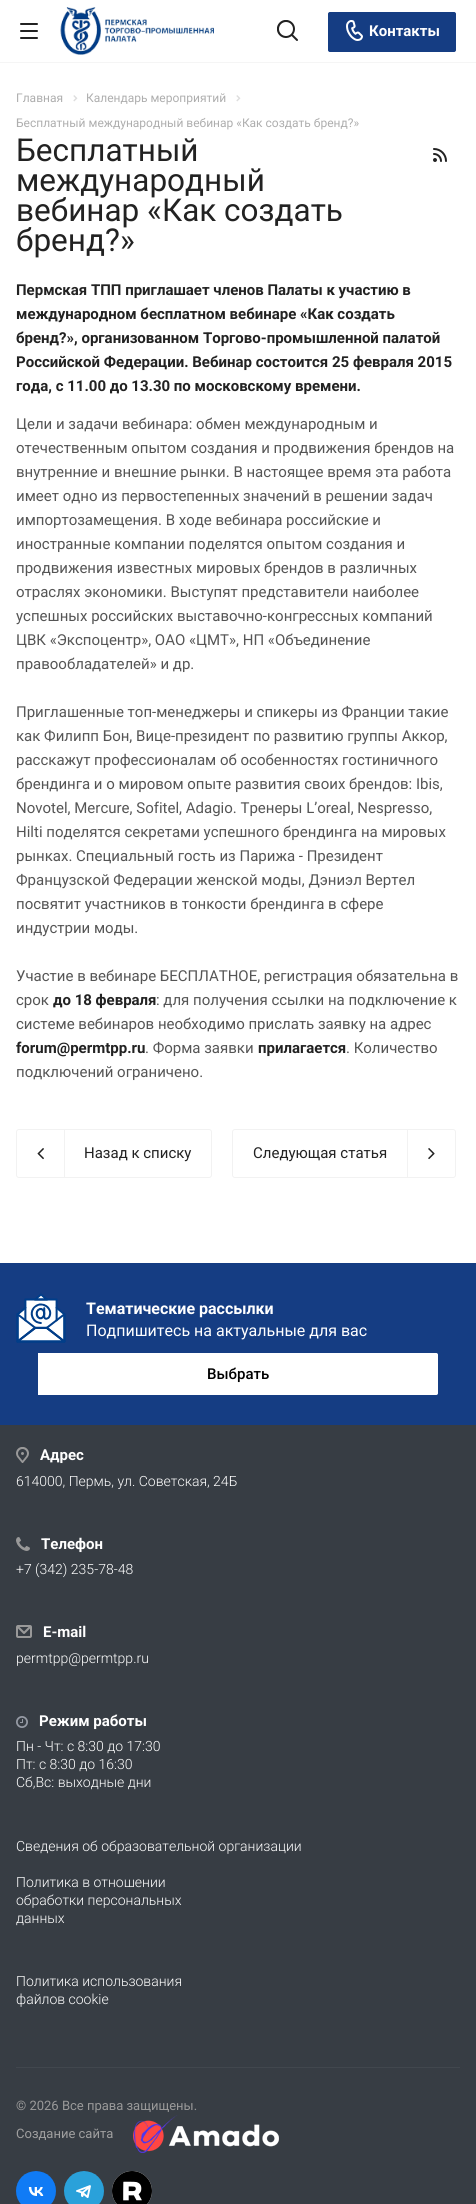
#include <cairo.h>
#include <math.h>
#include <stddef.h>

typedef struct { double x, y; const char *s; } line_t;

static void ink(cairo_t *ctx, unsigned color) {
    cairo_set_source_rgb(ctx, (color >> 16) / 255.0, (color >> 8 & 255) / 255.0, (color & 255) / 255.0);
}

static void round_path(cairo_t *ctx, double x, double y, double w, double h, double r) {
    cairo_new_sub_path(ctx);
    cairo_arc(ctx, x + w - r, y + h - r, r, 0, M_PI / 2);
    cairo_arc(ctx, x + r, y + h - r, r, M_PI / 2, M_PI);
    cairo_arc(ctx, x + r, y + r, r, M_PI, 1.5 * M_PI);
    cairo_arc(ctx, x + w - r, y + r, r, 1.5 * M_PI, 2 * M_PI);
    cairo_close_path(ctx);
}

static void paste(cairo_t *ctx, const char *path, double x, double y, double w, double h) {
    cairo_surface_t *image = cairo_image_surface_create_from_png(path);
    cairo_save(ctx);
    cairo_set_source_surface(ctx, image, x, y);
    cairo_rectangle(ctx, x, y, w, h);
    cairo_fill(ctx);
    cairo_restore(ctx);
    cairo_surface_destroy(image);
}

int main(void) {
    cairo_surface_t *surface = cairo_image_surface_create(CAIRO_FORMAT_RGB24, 476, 2204);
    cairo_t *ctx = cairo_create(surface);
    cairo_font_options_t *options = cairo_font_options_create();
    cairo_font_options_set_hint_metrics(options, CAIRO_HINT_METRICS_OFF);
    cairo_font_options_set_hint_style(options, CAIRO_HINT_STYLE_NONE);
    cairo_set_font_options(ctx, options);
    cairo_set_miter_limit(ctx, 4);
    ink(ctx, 0xFFFFFF);
    cairo_paint(ctx);
    ink(ctx, 0xF5F5F5);
    cairo_rectangle(ctx, 0, 62, 476, 1);
    cairo_fill(ctx);
    paste(ctx, "media/1.png", 20, 23, 18, 16);
    paste(ctx, "media/2.png", 60, 7, 154, 48);
    paste(ctx, "media/3.png", 277, 20, 21, 21);
    ink(ctx, 0x153D83);
    round_path(ctx, 328.5, 12.5, 127, 39, 1.5);
    cairo_fill_preserve(ctx);
    cairo_set_line_width(ctx, 1);
    cairo_stroke(ctx);
    paste(ctx, "media/4.png", 346, 20, 17, 21);
    cairo_select_font_face(ctx, "Roboto", CAIRO_FONT_SLANT_NORMAL, CAIRO_FONT_WEIGHT_BOLD);
    cairo_set_font_size(ctx, 15);
    ink(ctx, 0xFFFFFF);
    cairo_move_to(ctx, 369, 36);
    cairo_show_text(ctx, "Контакты");
    cairo_select_font_face(ctx, "Roboto", CAIRO_FONT_SLANT_NORMAL, CAIRO_FONT_WEIGHT_NORMAL);
    cairo_set_font_size(ctx, 12);
    ink(ctx, 0xAEAEAE);
    cairo_move_to(ctx, 16, 102);
    cairo_show_text(ctx, "Главная");
    paste(ctx, "media/5.png", 73, 95, 5, 7);
    cairo_move_to(ctx, 86, 102);
    cairo_show_text(ctx, "Календарь мероприятий");
    paste(ctx, "media/5.png", 236, 95, 5, 7);
    cairo_move_to(ctx, 16, 127);
    cairo_show_text(ctx, "Бесплатный международный вебинар «Как создать бренд?»");
    cairo_set_font_size(ctx, 31.5);
    ink(ctx, 0x222222);
    {
        static const line_t items[] = {
            {16, 161, "Бесплатный"},
            {16, 191, "международный"},
            {16, 221, "вебинар «Как создать"},
            {16, 251, "бренд?»"},
        };
        for (size_t i = 0; i < sizeof items / sizeof *items; i++) {
            cairo_move_to(ctx, items[i].x, items[i].y);
            cairo_show_text(ctx, items[i].s);
        }
    }
    paste(ctx, "media/6.png", 433, 148, 14, 14);
    cairo_select_font_face(ctx, "Roboto", CAIRO_FONT_SLANT_NORMAL, CAIRO_FONT_WEIGHT_BOLD);
    cairo_set_font_size(ctx, 15);
    {
        static const line_t items[] = {
            {16, 295, "Пермская ТПП приглашает членов Палаты к участию в"},
            {16, 319, "международном бесплатном вебинаре «Как создать"},
            {16, 343, "бренд?», организованном Торгово-промышленной палатой"},
            {16, 367, "Российской Федерации. Вебинар состоится 25 февраля 2015"},
            {16, 391, "года, с 11.00 до 13.30 по московскому времени."},
        };
        for (size_t i = 0; i < sizeof items / sizeof *items; i++) {
            cairo_move_to(ctx, items[i].x, items[i].y);
            cairo_show_text(ctx, items[i].s);
        }
    }
    cairo_select_font_face(ctx, "Roboto", CAIRO_FONT_SLANT_NORMAL, CAIRO_FONT_WEIGHT_NORMAL);
    ink(ctx, 0x555555);
    {
        static const line_t items[] = {
            {16, 429, "Цели и задачи вебинара: обмен международным и"},
            {16, 453, "отечественным опытом создания и продвижения брендов на"},
            {16, 477, "внутренние и внешние рынки. В настоящее время эта работа"},
            {16, 501, "имеет одно из первостепенных значений в решении задач"},
            {16, 525, "импортозамещения. В ходе вебинара российские и"},
            {16, 549, "иностранные компании поделятся опытом создания и"},
            {16, 573, "продвижения известных мировых брендов в различных"},
            {16, 597, "отраслях экономики. Выступят представители наиболее"},
            {16, 621, "успешных российских выставочно-конгрессных компаний"},
            {16, 645, "ЦВК «Экспоцентр», ОАО «ЦМТ», НП «Объединение"},
            {16, 669, "правообладателей» и др."},
            {16, 717, "Приглашенные топ-менеджеры и спикеры из Франции такие"},
            {16, 741, "как Филипп Бон, Вице-президент по развитию группы Аккор,"},
            {16, 765, "расскажут профессионалам об особенностях гостиничного"},
            {16, 789, "брендинга и о мировом опыте развития своих брендов: Ibis,"},
            {16, 813, "Novotel, Mercure, Sofitel, Adagio. Тренеры L’oreal, Nespresso,"},
            {16, 837, "Hilti поделятся секретами успешного брендинга на мировых"},
            {16, 861, "рынках. Специальный гость из Парижа - Президент"},
            {16, 885, "Французской Федерации женской моды, Дэниэл Вертел"},
            {16, 909, "посвятит участников в тонкости брендинга в сфере"},
            {16, 933, "индустрии моды."},
            {16, 981, "Участие в вебинаре БЕСПЛАТНОЕ, регистрация обязательна в"},
            {16, 1005, "срок"},
        };
        for (size_t i = 0; i < sizeof items / sizeof *items; i++) {
            cairo_move_to(ctx, items[i].x, items[i].y);
            cairo_show_text(ctx, items[i].s);
        }
    }
    cairo_select_font_face(ctx, "Roboto", CAIRO_FONT_SLANT_NORMAL, CAIRO_FONT_WEIGHT_BOLD);
    ink(ctx, 0x222222);
    cairo_move_to(ctx, 53, 1005);
    cairo_show_text(ctx, "до 18 февраля");
    cairo_select_font_face(ctx, "Roboto", CAIRO_FONT_SLANT_NORMAL, CAIRO_FONT_WEIGHT_NORMAL);
    ink(ctx, 0x555555);
    cairo_move_to(ctx, 156, 1005);
    cairo_show_text(ctx, ": для получения ссылки на подключение к");
    cairo_move_to(ctx, 16, 1029);
    cairo_show_text(ctx, "системе вебинаров необходимо приcлать заявку на адрес");
    cairo_select_font_face(ctx, "Roboto", CAIRO_FONT_SLANT_NORMAL, CAIRO_FONT_WEIGHT_BOLD);
    ink(ctx, 0x222222);
    cairo_move_to(ctx, 16, 1053);
    cairo_show_text(ctx, "forum@permtpp.ru");
    cairo_select_font_face(ctx, "Roboto", CAIRO_FONT_SLANT_NORMAL, CAIRO_FONT_WEIGHT_NORMAL);
    ink(ctx, 0x555555);
    cairo_move_to(ctx, 145, 1053);
    cairo_show_text(ctx, ". Форма заявки");
    cairo_select_font_face(ctx, "Roboto", CAIRO_FONT_SLANT_NORMAL, CAIRO_FONT_WEIGHT_BOLD);
    ink(ctx, 0x222222);
    cairo_move_to(ctx, 258, 1053);
    cairo_show_text(ctx, "прилагается");
    cairo_select_font_face(ctx, "Roboto", CAIRO_FONT_SLANT_NORMAL, CAIRO_FONT_WEIGHT_NORMAL);
    ink(ctx, 0x555555);
    cairo_move_to(ctx, 346, 1053);
    cairo_show_text(ctx, ". Количество");
    cairo_move_to(ctx, 16, 1077);
    cairo_show_text(ctx, "подключений ограничено.");
    round_path(ctx, 16.5, 1129.5, 195, 48, 2.5);
    ink(ctx, 0xF2F2F2);
    cairo_stroke(ctx);
    paste(ctx, "media/7.png", 37, 1148, 7, 12);
    cairo_rectangle(ctx, 64, 1130, 1, 47);
    cairo_fill(ctx);
    ink(ctx, 0x222222);
    cairo_move_to(ctx, 84, 1158);
    cairo_show_text(ctx, "Назад к списку");
    round_path(ctx, 232.5, 1129.5, 223, 48, 2.5);
    ink(ctx, 0xF2F2F2);
    cairo_stroke(ctx);
    ink(ctx, 0x222222);
    cairo_move_to(ctx, 253, 1158);
    cairo_show_text(ctx, "Следующая статья");
    ink(ctx, 0xF2F2F2);
    cairo_rectangle(ctx, 407, 1130, 1, 47);
    cairo_fill(ctx);
    paste(ctx, "media/8.png", 428, 1148, 7, 12);
    ink(ctx, 0x373D44);
    cairo_rectangle(ctx, 0, 1425, 476, 779);
    cairo_fill(ctx);
    ink(ctx, 0x153D83);
    cairo_rectangle(ctx, 0, 1263, 476, 162);
    cairo_fill(ctx);
    paste(ctx, "media/9.png", 16, 1293, 50, 50);
    cairo_select_font_face(ctx, "Roboto", CAIRO_FONT_SLANT_NORMAL, CAIRO_FONT_WEIGHT_BOLD);
    cairo_set_font_size(ctx, 16);
    ink(ctx, 0xFFFFFF);
    cairo_move_to(ctx, 86, 1314);
    cairo_show_text(ctx, "Тематические рассылки");
    cairo_select_font_face(ctx, "Roboto", CAIRO_FONT_SLANT_NORMAL, CAIRO_FONT_WEIGHT_NORMAL);
    cairo_move_to(ctx, 86, 1336);
    cairo_show_text(ctx, "Подпишитесь на актуальные для вас");
    cairo_new_path(ctx);
    cairo_move_to(ctx, 38.5, 1353.5);
    cairo_line_to(ctx, 436, 1353.5);
    cairo_curve_to(ctx, 437, 1353.5, 437.5, 1354, 437.5, 1355);
    cairo_line_to(ctx, 437.5, 1393);
    cairo_curve_to(ctx, 437.5, 1394, 437, 1394.5, 436, 1394.5);
    cairo_line_to(ctx, 38.5, 1394.5);
    cairo_close_path(ctx);
    cairo_fill_preserve(ctx);
    cairo_stroke(ctx);
    cairo_select_font_face(ctx, "Roboto Medium", CAIRO_FONT_SLANT_NORMAL, CAIRO_FONT_WEIGHT_NORMAL);
    cairo_set_font_size(ctx, 15);
    ink(ctx, 0x000000);
    cairo_move_to(ctx, 207, 1379);
    cairo_show_text(ctx, "Выбрать");
    paste(ctx, "media/10.png", 16, 1447, 13, 16);
    cairo_select_font_face(ctx, "Roboto", CAIRO_FONT_SLANT_NORMAL, CAIRO_FONT_WEIGHT_BOLD);
    ink(ctx, 0xFFFFFF);
    cairo_move_to(ctx, 40, 1460);
    cairo_show_text(ctx, "Адрес");
    cairo_select_font_face(ctx, "Roboto Light", CAIRO_FONT_SLANT_NORMAL, CAIRO_FONT_WEIGHT_NORMAL);
    cairo_set_font_size(ctx, 14);
    cairo_move_to(ctx, 16, 1486);
    cairo_show_text(ctx, "614000, Пермь, ул. Советская, 24Б");
    paste(ctx, "media/11.png", 16, 1537, 14, 14);
    cairo_select_font_face(ctx, "Roboto", CAIRO_FONT_SLANT_NORMAL, CAIRO_FONT_WEIGHT_BOLD);
    cairo_set_font_size(ctx, 15);
    cairo_move_to(ctx, 41, 1549);
    cairo_show_text(ctx, "Телефон");
    cairo_select_font_face(ctx, "Roboto Light", CAIRO_FONT_SLANT_NORMAL, CAIRO_FONT_WEIGHT_NORMAL);
    cairo_set_font_size(ctx, 14);
    cairo_move_to(ctx, 16, 1574);
    cairo_show_text(ctx, "+7 (342) 235-78-48");
    paste(ctx, "media/12.png", 16, 1625, 16, 13);
    cairo_select_font_face(ctx, "Roboto", CAIRO_FONT_SLANT_NORMAL, CAIRO_FONT_WEIGHT_BOLD);
    cairo_set_font_size(ctx, 15);
    cairo_move_to(ctx, 43, 1637);
    cairo_show_text(ctx, "E-mail");
    cairo_select_font_face(ctx, "Roboto Light", CAIRO_FONT_SLANT_NORMAL, CAIRO_FONT_WEIGHT_NORMAL);
    cairo_set_font_size(ctx, 14);
    cairo_move_to(ctx, 16, 1663);
    cairo_show_text(ctx, "permtpp@permtpp.ru");
    paste(ctx, "media/13.png", 16, 1716, 12, 12);
    cairo_select_font_face(ctx, "Roboto", CAIRO_FONT_SLANT_NORMAL, CAIRO_FONT_WEIGHT_BOLD);
    cairo_set_font_size(ctx, 15);
    cairo_move_to(ctx, 39, 1726);
    cairo_show_text(ctx, "Режим работы");
    cairo_select_font_face(ctx, "Roboto Light", CAIRO_FONT_SLANT_NORMAL, CAIRO_FONT_WEIGHT_NORMAL);
    cairo_set_font_size(ctx, 14);
    {
        static const line_t items[] = {
            {16, 1751, "Пн - Чт: с 8:30 до 17:30"},
            {16, 1769, "Пт: с 8:30 до 16:30"},
            {16, 1787, "Сб,Вс: выходные дни"},
            {16, 1851, "Сведения об образовательной организации"},
            {16, 1887, "Политика в отношении"},
            {16, 1905, "обработки персональных"},
            {16, 1923, "данных"},
            {16, 1986, "Политика использования"},
            {16, 2004, "файлов cookie"},
        };
        for (size_t i = 0; i < sizeof items / sizeof *items; i++) {
            cairo_move_to(ctx, items[i].x, items[i].y);
            cairo_show_text(ctx, items[i].s);
        }
    }
    ink(ctx, 0x41474E);
    cairo_rectangle(ctx, 16, 2067, 444, 1);
    cairo_fill(ctx);
    cairo_select_font_face(ctx, "Roboto", CAIRO_FONT_SLANT_NORMAL, CAIRO_FONT_WEIGHT_NORMAL);
    cairo_set_font_size(ctx, 13);
    ink(ctx, 0x999999);
    cairo_move_to(ctx, 16, 2110);
    cairo_show_text(ctx, "© 2026 Все права защищены.");
    ink(ctx, 0x9F9F9F);
    cairo_move_to(ctx, 16, 2138);
    cairo_show_text(ctx, "Создание сайта");
    paste(ctx, "media/14.png", 133, 2115, 146, 38);
    paste(ctx, "media/15.png", 16, 2171, 40, 33);
    paste(ctx, "media/16.png", 64, 2171, 40, 33);
    ink(ctx, 0xFFFFFF);
    cairo_arc(ctx, 132, 2191, 20, 0, 2 * M_PI);
    cairo_fill(ctx);
    paste(ctx, "media/17.png", 112, 2171, 40, 33);
    cairo_surface_write_to_png(surface, "image.png");
    cairo_font_options_destroy(options);
    cairo_destroy(ctx);
    cairo_surface_destroy(surface);
    return 0;
}
